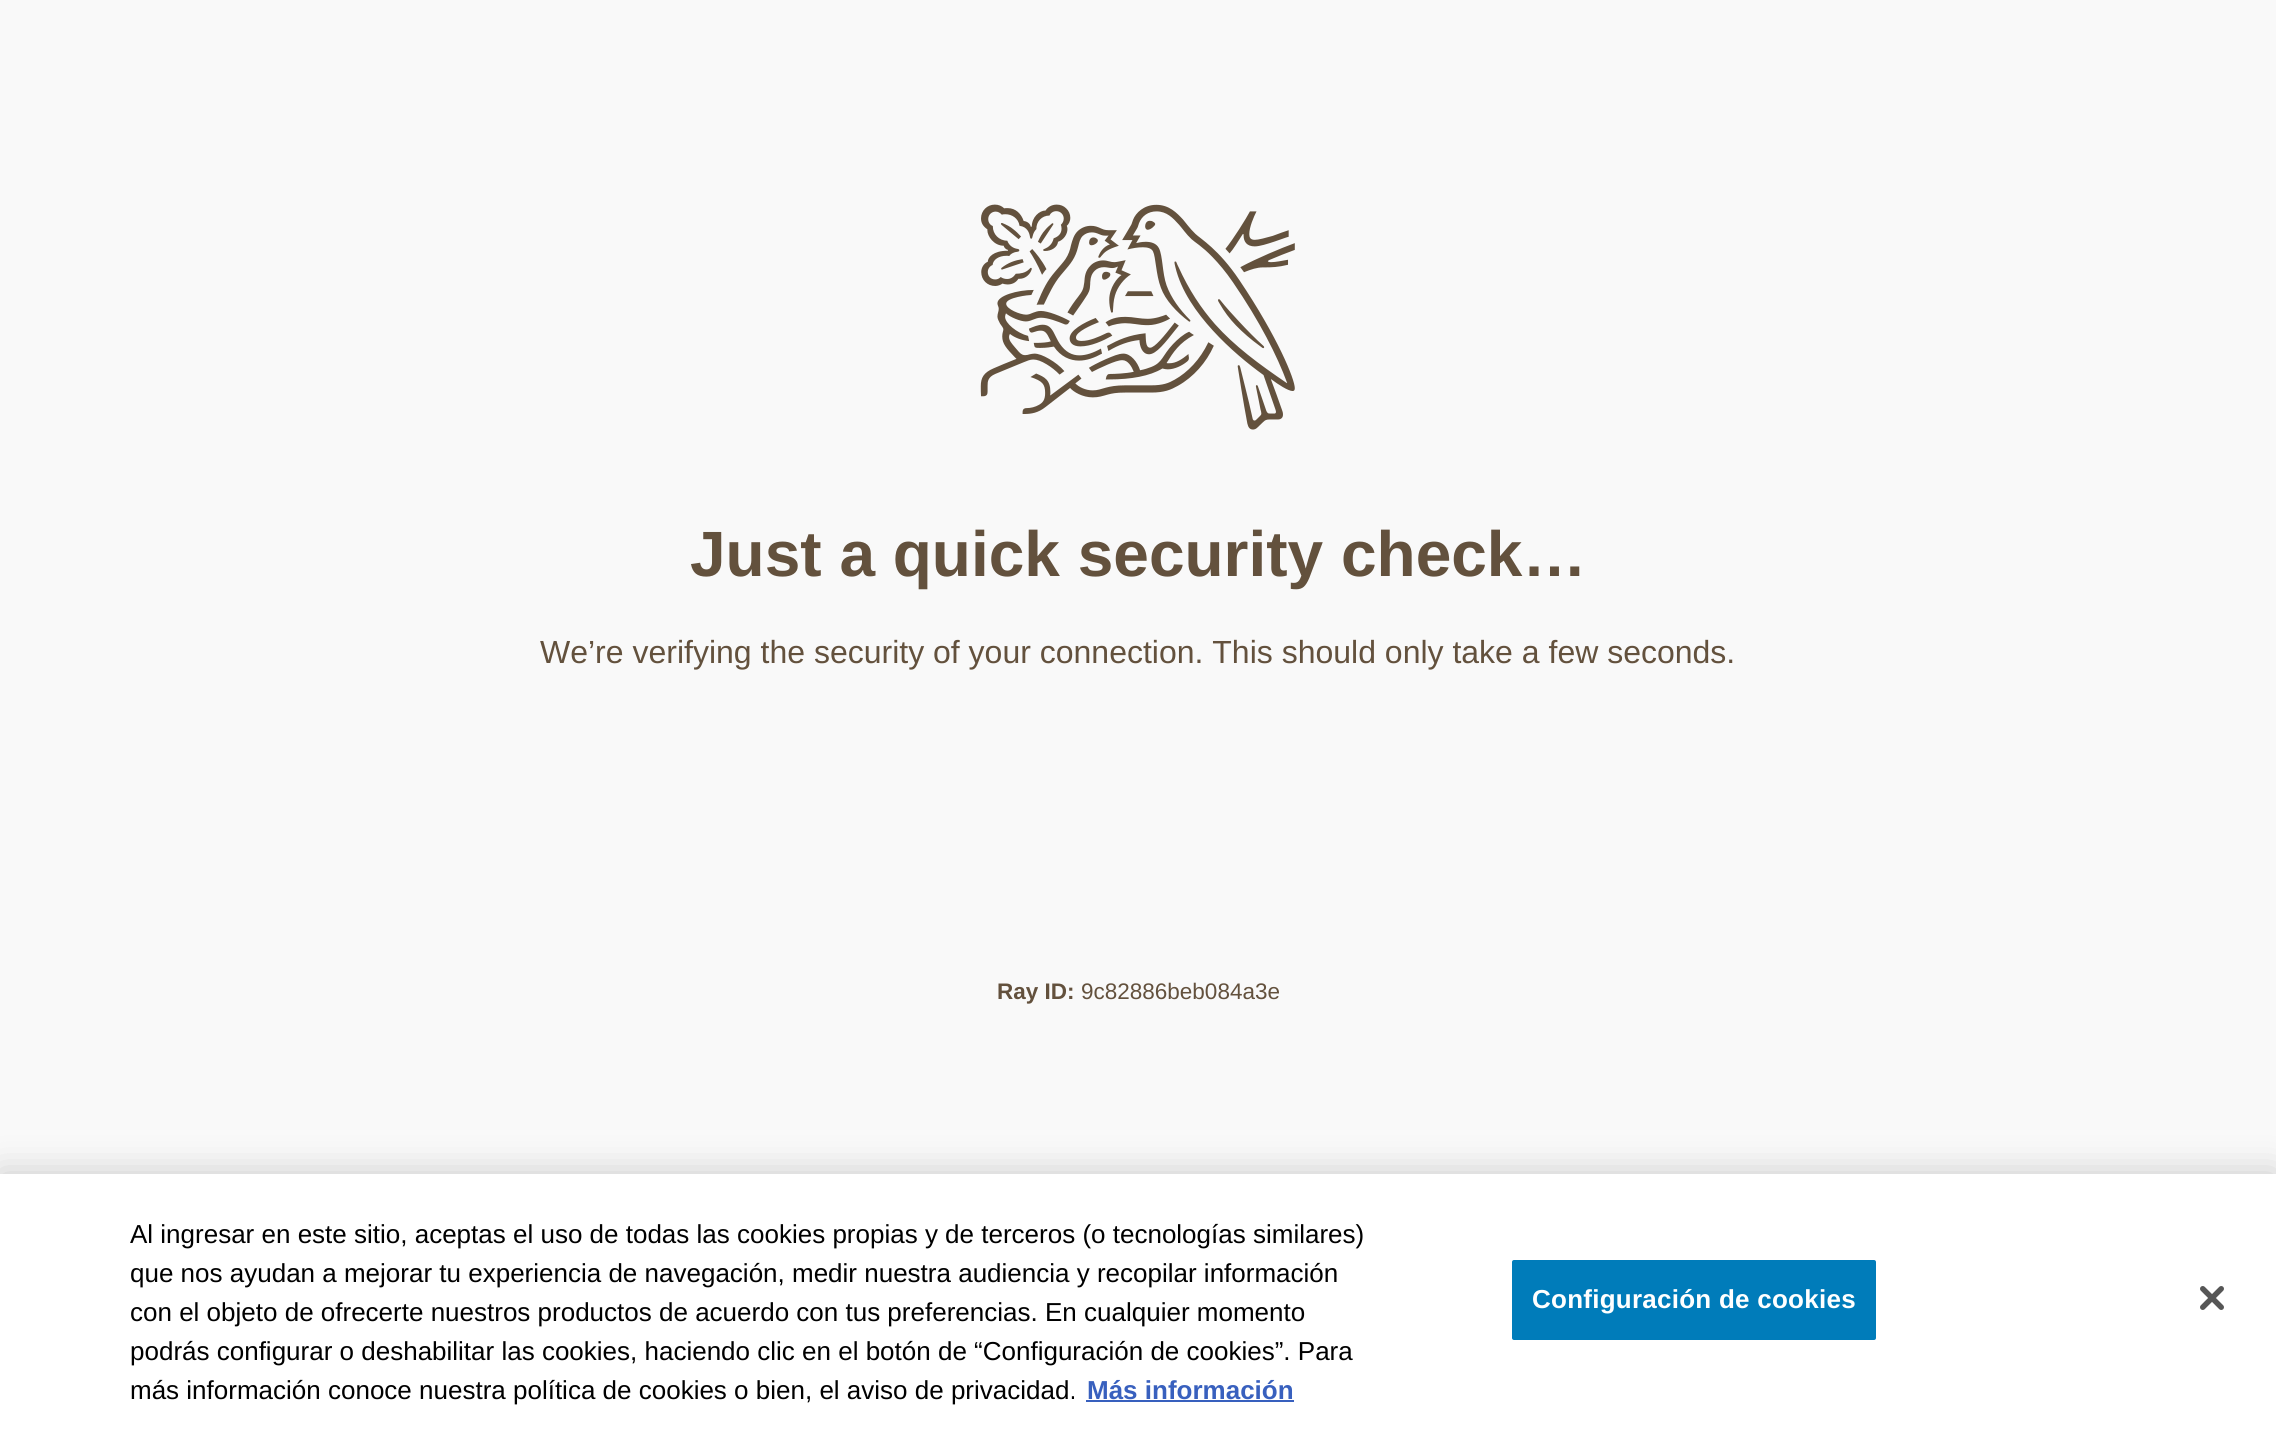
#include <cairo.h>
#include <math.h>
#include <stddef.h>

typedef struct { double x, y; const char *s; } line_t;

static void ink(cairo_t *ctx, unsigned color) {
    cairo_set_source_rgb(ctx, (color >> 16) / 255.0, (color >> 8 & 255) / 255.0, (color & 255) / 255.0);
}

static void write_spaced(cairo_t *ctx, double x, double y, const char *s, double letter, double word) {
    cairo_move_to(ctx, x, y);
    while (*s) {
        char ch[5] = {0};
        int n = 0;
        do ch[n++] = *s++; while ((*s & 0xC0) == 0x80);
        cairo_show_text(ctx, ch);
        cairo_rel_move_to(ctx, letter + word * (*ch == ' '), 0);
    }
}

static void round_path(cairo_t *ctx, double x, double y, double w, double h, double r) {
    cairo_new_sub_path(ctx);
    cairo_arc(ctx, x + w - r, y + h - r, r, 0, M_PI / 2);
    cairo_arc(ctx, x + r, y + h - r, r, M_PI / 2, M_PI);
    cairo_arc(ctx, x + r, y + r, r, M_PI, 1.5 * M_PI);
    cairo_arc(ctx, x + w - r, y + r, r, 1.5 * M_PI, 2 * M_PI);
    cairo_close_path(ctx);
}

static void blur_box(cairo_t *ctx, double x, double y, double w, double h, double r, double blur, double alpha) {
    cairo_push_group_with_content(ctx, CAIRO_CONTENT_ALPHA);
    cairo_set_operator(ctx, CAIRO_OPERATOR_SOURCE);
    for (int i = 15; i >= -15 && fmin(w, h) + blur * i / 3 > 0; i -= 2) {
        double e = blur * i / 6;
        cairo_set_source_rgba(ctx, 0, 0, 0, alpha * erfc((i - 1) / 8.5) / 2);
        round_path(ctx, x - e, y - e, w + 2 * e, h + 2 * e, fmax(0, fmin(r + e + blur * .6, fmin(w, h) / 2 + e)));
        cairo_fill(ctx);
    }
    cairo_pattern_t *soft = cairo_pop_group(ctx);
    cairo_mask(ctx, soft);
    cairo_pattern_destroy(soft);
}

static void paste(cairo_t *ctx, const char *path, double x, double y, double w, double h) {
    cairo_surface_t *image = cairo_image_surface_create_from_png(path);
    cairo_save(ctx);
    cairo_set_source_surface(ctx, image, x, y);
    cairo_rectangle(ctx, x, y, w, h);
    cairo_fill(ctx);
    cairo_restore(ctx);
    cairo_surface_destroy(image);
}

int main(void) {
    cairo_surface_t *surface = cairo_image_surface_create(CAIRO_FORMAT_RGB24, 2276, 1429);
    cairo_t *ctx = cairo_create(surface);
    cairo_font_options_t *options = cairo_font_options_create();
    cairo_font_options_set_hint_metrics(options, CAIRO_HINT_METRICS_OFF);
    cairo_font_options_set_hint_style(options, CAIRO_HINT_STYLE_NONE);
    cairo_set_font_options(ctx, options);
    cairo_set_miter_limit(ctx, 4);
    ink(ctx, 0xF9F9F9);
    cairo_paint(ctx);
    paste(ctx, "media/1.png", 980, 204, 315, 226);
    cairo_select_font_face(ctx, "Liberation Sans", CAIRO_FONT_SLANT_NORMAL, CAIRO_FONT_WEIGHT_BOLD);
    cairo_set_font_size(ctx, 64);
    ink(ctx, 0x63513D);
    cairo_move_to(ctx, 690, 576);
    cairo_show_text(ctx, "Just a quick security check…");
    cairo_select_font_face(ctx, "Liberation Sans", CAIRO_FONT_SLANT_NORMAL, CAIRO_FONT_WEIGHT_NORMAL);
    cairo_set_font_size(ctx, 32);
    cairo_move_to(ctx, 540, 663);
    cairo_show_text(ctx, "We’re verifying the security of your connection. This should only take a few seconds.");
    cairo_select_font_face(ctx, "Liberation Sans", CAIRO_FONT_SLANT_NORMAL, CAIRO_FONT_WEIGHT_BOLD);
    cairo_set_font_size(ctx, 22.5);
    cairo_move_to(ctx, 997, 999);
    cairo_show_text(ctx, "Ray ID:");
    cairo_select_font_face(ctx, "Liberation Sans", CAIRO_FONT_SLANT_NORMAL, CAIRO_FONT_WEIGHT_NORMAL);
    cairo_move_to(ctx, 1081, 999);
    cairo_show_text(ctx, "9c82886beb084a3e");
    ink(ctx, 0x000000);
    blur_box(ctx, 0, 1174, 2276, 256, 0, 18, 0.2);
    ink(ctx, 0xFFFFFF);
    cairo_rectangle(ctx, 0, 1174, 2276, 255);
    cairo_fill(ctx);
    cairo_set_font_size(ctx, 26);
    ink(ctx, 0x000000);
    {
        static const line_t items[] = {
            {130, 1243, "Al ingresar en este sitio, aceptas el uso de todas las cookies propias y de terceros (o tecnologías similares)"},
            {130, 1282, "que nos ayudan a mejorar tu experiencia de navegación, medir nuestra audiencia y recopilar información"},
            {130, 1321, "con el objeto de ofrecerte nuestros productos de acuerdo con tus preferencias."},
            {1045, 1321, "En cualquier momento"},
            {130, 1360, "podrás configurar o deshabilitar las cookies, haciendo clic en el botón de “Configuración de cookies”. Para"},
            {130, 1399, "más información conoce nuestra política de cookies o bien, el aviso de privacidad."},
        };
        for (size_t i = 0; i < sizeof items / sizeof *items; i++) {
            cairo_move_to(ctx, items[i].x, items[i].y);
            cairo_show_text(ctx, items[i].s);
        }
    }
    cairo_select_font_face(ctx, "Liberation Sans", CAIRO_FONT_SLANT_NORMAL, CAIRO_FONT_WEIGHT_BOLD);
    ink(ctx, 0x3860BE);
    cairo_move_to(ctx, 1087, 1399);
    cairo_show_text(ctx, "Más información");
    cairo_rectangle(ctx, 1086, 1400, 208, 2);
    cairo_fill(ctx);
    ink(ctx, 0x007CBA);
    round_path(ctx, 1511, 1259, 366, 82, 3);
    cairo_fill_preserve(ctx);
    ink(ctx, 0xFFFFFF);
    cairo_stroke(ctx);
    write_spaced(ctx, 1532, 1308, "Configuración de cookies", 0.25, 0);
    paste(ctx, "media/2.png", 2200, 1286, 24, 24);
    cairo_surface_write_to_png(surface, "image.png");
    cairo_font_options_destroy(options);
    cairo_destroy(ctx);
    cairo_surface_destroy(surface);
    return 0;
}
